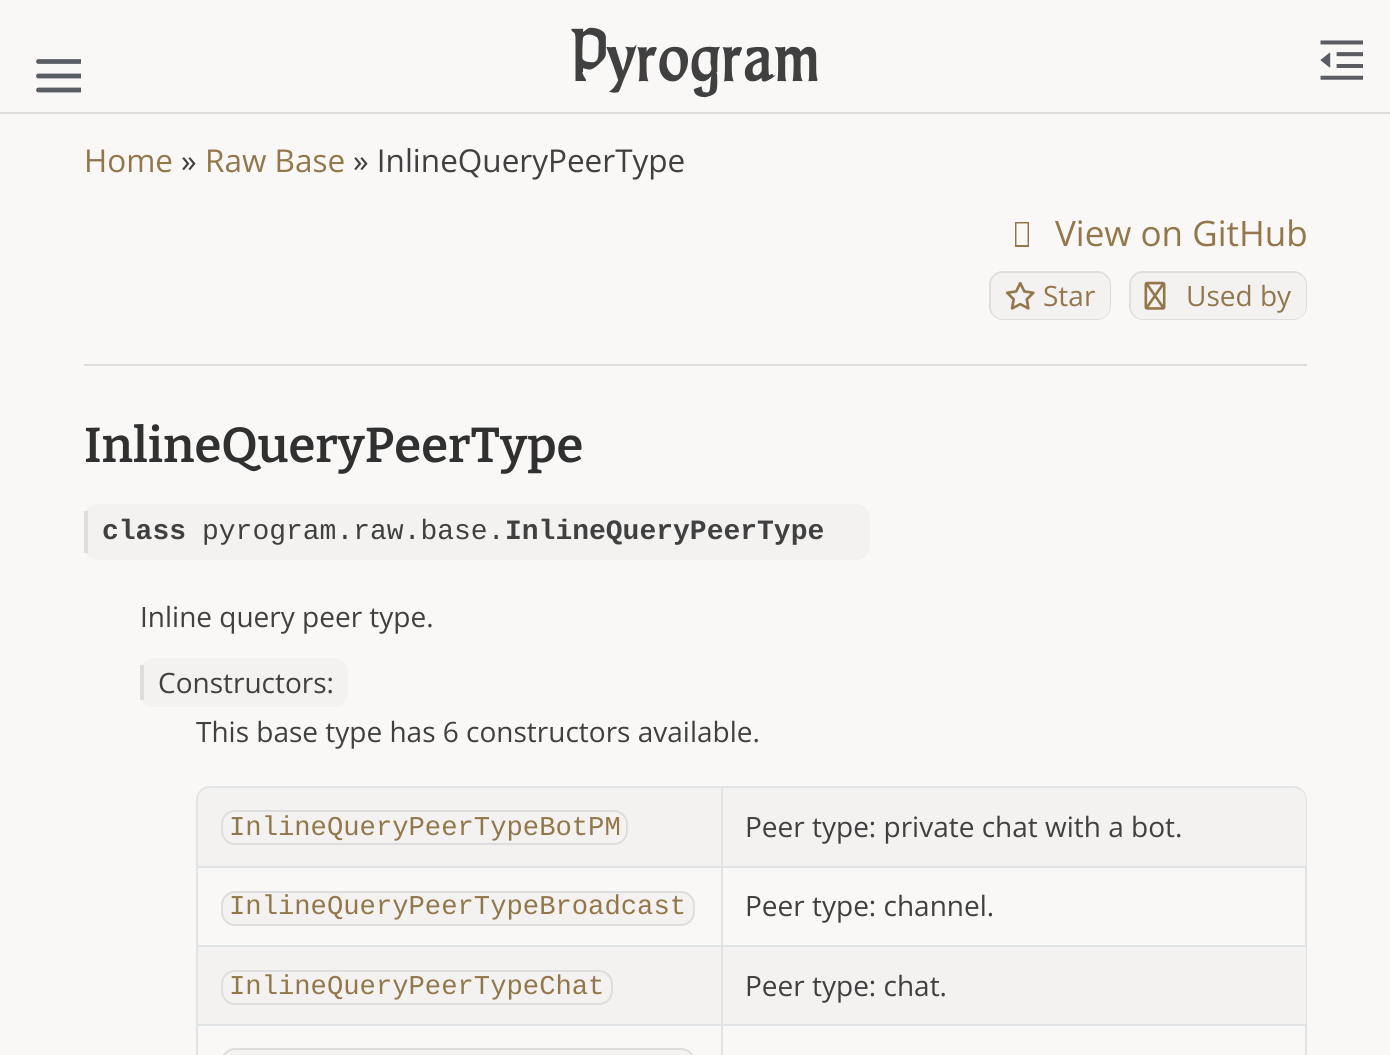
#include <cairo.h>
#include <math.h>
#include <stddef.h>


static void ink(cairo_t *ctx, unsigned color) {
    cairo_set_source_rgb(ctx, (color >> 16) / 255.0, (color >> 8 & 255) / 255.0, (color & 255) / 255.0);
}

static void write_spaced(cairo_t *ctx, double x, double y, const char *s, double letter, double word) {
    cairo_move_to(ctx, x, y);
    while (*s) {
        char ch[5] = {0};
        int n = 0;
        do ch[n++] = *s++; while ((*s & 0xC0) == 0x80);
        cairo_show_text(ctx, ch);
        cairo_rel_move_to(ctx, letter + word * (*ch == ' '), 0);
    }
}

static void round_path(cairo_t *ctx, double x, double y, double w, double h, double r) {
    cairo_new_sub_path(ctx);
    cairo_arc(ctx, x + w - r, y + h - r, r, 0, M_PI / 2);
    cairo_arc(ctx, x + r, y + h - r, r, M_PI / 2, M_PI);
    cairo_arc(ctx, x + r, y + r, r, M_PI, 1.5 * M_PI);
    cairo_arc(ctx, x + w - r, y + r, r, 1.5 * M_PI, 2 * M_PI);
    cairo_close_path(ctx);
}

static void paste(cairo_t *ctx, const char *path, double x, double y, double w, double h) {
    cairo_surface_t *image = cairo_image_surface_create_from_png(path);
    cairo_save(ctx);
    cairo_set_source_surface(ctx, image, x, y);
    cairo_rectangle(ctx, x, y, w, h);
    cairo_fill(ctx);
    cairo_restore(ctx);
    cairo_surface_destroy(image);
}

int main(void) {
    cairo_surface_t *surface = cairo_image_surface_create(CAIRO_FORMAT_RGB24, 1390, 1055);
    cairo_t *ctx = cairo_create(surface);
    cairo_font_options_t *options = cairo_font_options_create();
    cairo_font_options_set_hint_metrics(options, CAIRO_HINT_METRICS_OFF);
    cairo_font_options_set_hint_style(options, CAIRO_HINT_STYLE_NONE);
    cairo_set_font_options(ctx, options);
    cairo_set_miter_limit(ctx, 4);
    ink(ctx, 0xF9F8F7);
    cairo_paint(ctx);
    ink(ctx, 0xDDDDDD);
    cairo_rectangle(ctx, 0, 112, 1390, 2);
    cairo_fill(ctx);
    cairo_save(ctx);
    cairo_rectangle(ctx, 32, 47, 49, 49);
    cairo_clip(ctx);
    cairo_new_path(ctx);
    cairo_move_to(ctx, 38.5, 76);
    cairo_line_to(ctx, 81.5, 76);
    cairo_move_to(ctx, 38.5, 61.5);
    cairo_line_to(ctx, 81.5, 61.5);
    cairo_move_to(ctx, 38.5, 90);
    cairo_line_to(ctx, 81.5, 90);
    ink(ctx, 0x5A5C63);
    cairo_set_line_width(ctx, 4.8);
    cairo_set_line_cap(ctx, CAIRO_LINE_CAP_ROUND);
    cairo_set_line_join(ctx, CAIRO_LINE_JOIN_ROUND);
    cairo_stroke(ctx);
    cairo_restore(ctx);
    cairo_select_font_face(ctx, "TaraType", CAIRO_FONT_SLANT_NORMAL, CAIRO_FONT_WEIGHT_BOLD);
    cairo_set_font_size(ctx, 66.5);
    ink(ctx, 0x404040);
    write_spaced(ctx, 570, 81, "Pyrogram", 2.75, 0);
    paste(ctx, "media/1.png", 1320, 40, 43, 40);
    cairo_select_font_face(ctx, "Open Sans", CAIRO_FONT_SLANT_NORMAL, CAIRO_FONT_WEIGHT_NORMAL);
    cairo_set_font_size(ctx, 31.5);
    ink(ctx, 0x93774B);
    cairo_move_to(ctx, 84, 172);
    cairo_show_text(ctx, "Home");
    ink(ctx, 0x404040);
    cairo_move_to(ctx, 181, 172);
    cairo_show_text(ctx, "»");
    ink(ctx, 0x93774B);
    cairo_move_to(ctx, 205, 172);
    cairo_show_text(ctx, "Raw Base");
    ink(ctx, 0x404040);
    cairo_move_to(ctx, 353, 172);
    cairo_show_text(ctx, "» InlineQueryPeerType");
    ink(ctx, 0x93774B);
    cairo_new_path(ctx);
    cairo_move_to(ctx, 1015, 247);
    cairo_line_to(ctx, 1015, 222);
    cairo_line_to(ctx, 1029, 222);
    cairo_line_to(ctx, 1029, 247);
    cairo_close_path(ctx);
    cairo_move_to(ctx, 1016.5, 245);
    cairo_line_to(ctx, 1027.5, 245);
    cairo_line_to(ctx, 1027.5, 223.5);
    cairo_line_to(ctx, 1016.5, 223.5);
    cairo_close_path(ctx);
    cairo_fill(ctx);
    cairo_set_font_size(ctx, 35);
    cairo_move_to(ctx, 1055, 246);
    cairo_show_text(ctx, "View on GitHub");
    round_path(ctx, 990, 272, 120, 47, 13);
    ink(ctx, 0xDDDDDD);
    cairo_stroke(ctx);
    ink(ctx, 0xF3F2F1);
    round_path(ctx, 991, 273, 119, 46, 12);
    cairo_fill(ctx);
    paste(ctx, "media/2.png", 1005, 281, 30, 29);
    cairo_set_font_size(ctx, 28);
    ink(ctx, 0x93774B);
    cairo_move_to(ctx, 1043, 306);
    cairo_show_text(ctx, "Star");
    round_path(ctx, 1130, 272, 176, 47, 13);
    ink(ctx, 0xDDDDDD);
    cairo_stroke(ctx);
    ink(ctx, 0xF3F2F1);
    round_path(ctx, 1131, 273, 175, 46, 12);
    cairo_fill(ctx);
    paste(ctx, "media/3.png", 1144, 281, 22, 29);
    ink(ctx, 0x93774B);
    cairo_move_to(ctx, 1186, 306);
    cairo_show_text(ctx, "Used by");
    ink(ctx, 0xDDDDDD);
    cairo_rectangle(ctx, 84, 364, 1223, 2);
    cairo_fill(ctx);
    cairo_select_font_face(ctx, "Bitter SemiBold", CAIRO_FONT_SLANT_NORMAL, CAIRO_FONT_WEIGHT_NORMAL);
    cairo_set_font_size(ctx, 49);
    ink(ctx, 0x303030);
    cairo_move_to(ctx, 84, 462);
    cairo_show_text(ctx, "InlineQueryPeerType");
    ink(ctx, 0xF3F2F1);
    round_path(ctx, 84, 504, 786, 56, 14);
    cairo_fill(ctx);
    ink(ctx, 0xDDDDDD);
    cairo_rectangle(ctx, 84, 511, 4, 42);
    cairo_fill(ctx);
    cairo_select_font_face(ctx, "Liberation Mono", CAIRO_FONT_SLANT_NORMAL, CAIRO_FONT_WEIGHT_BOLD);
    cairo_set_font_size(ctx, 28);
    ink(ctx, 0x404040);
    cairo_move_to(ctx, 102, 539);
    cairo_show_text(ctx, "class");
    cairo_select_font_face(ctx, "Liberation Mono", CAIRO_FONT_SLANT_NORMAL, CAIRO_FONT_WEIGHT_NORMAL);
    cairo_move_to(ctx, 202, 539);
    cairo_show_text(ctx, "pyrogram.raw.base.");
    cairo_select_font_face(ctx, "Liberation Mono", CAIRO_FONT_SLANT_NORMAL, CAIRO_FONT_WEIGHT_BOLD);
    cairo_move_to(ctx, 505, 539);
    cairo_show_text(ctx, "InlineQueryPeerType");
    cairo_select_font_face(ctx, "Open Sans", CAIRO_FONT_SLANT_NORMAL, CAIRO_FONT_WEIGHT_NORMAL);
    cairo_move_to(ctx, 140, 627);
    cairo_show_text(ctx, "Inline query peer type.");
    ink(ctx, 0xF3F2F1);
    round_path(ctx, 140, 658, 208, 49, 14);
    cairo_fill(ctx);
    ink(ctx, 0xDDDDDD);
    cairo_rectangle(ctx, 140, 665, 4, 35);
    cairo_fill(ctx);
    ink(ctx, 0x404040);
    cairo_move_to(ctx, 158, 693);
    cairo_show_text(ctx, "Constructors:");
    cairo_move_to(ctx, 196, 742);
    cairo_show_text(ctx, "This base type has 6 constructors available.");
    round_path(ctx, 197, 787, 1109, 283, 13);
    ink(ctx, 0xE1E4E5);
    cairo_stroke(ctx);
    ink(ctx, 0xF3F2F1);
    cairo_new_path(ctx);
    cairo_move_to(ctx, 210, 788);
    cairo_line_to(ctx, 721, 788);
    cairo_line_to(ctx, 721, 868);
    cairo_line_to(ctx, 198, 868);
    cairo_line_to(ctx, 198, 800);
    cairo_curve_to(ctx, 198, 793.5, 203.5, 788, 210, 788);
    cairo_close_path(ctx);
    cairo_fill(ctx);
    ink(ctx, 0xE1E4E5);
    cairo_rectangle(ctx, 198, 866, 523, 2);
    cairo_fill(ctx);
    round_path(ctx, 222, 811, 405, 33, 13);
    ink(ctx, 0xDDDDDD);
    cairo_stroke(ctx);
    cairo_select_font_face(ctx, "Liberation Mono", CAIRO_FONT_SLANT_NORMAL, CAIRO_FONT_WEIGHT_NORMAL);
    cairo_set_font_size(ctx, 27.2);
    ink(ctx, 0x93774B);
    cairo_move_to(ctx, 229, 835);
    cairo_show_text(ctx, "InlineQueryPeerTypeBotPM");
    ink(ctx, 0xF3F2F1);
    cairo_new_path(ctx);
    cairo_move_to(ctx, 721, 788);
    cairo_line_to(ctx, 1294, 788);
    cairo_curve_to(ctx, 1300.5, 788, 1306, 793.5, 1306, 800);
    cairo_line_to(ctx, 1306, 868);
    cairo_line_to(ctx, 721, 868);
    cairo_close_path(ctx);
    cairo_fill(ctx);
    ink(ctx, 0xE1E4E5);
    cairo_rectangle(ctx, 721, 866, 585, 2);
    cairo_fill(ctx);
    cairo_rectangle(ctx, 721, 788, 2, 80);
    cairo_fill(ctx);
    cairo_select_font_face(ctx, "Open Sans", CAIRO_FONT_SLANT_NORMAL, CAIRO_FONT_WEIGHT_NORMAL);
    cairo_set_font_size(ctx, 28);
    ink(ctx, 0x404040);
    cairo_move_to(ctx, 745, 837);
    cairo_show_text(ctx, "Peer type: private chat with a bot.");
    ink(ctx, 0xE1E4E5);
    cairo_rectangle(ctx, 198, 945, 1108, 2);
    cairo_fill(ctx);
    ink(ctx, 0xF3F2F1);
    round_path(ctx, 222, 892, 472, 33, 13);
    cairo_fill_preserve(ctx);
    ink(ctx, 0xDDDDDD);
    cairo_stroke(ctx);
    cairo_select_font_face(ctx, "Liberation Mono", CAIRO_FONT_SLANT_NORMAL, CAIRO_FONT_WEIGHT_NORMAL);
    cairo_set_font_size(ctx, 27.2);
    ink(ctx, 0x93774B);
    cairo_move_to(ctx, 229, 914);
    cairo_show_text(ctx, "InlineQueryPeerTypeBroadcast");
    ink(ctx, 0xE1E4E5);
    cairo_rectangle(ctx, 721, 868, 2, 79);
    cairo_fill(ctx);
    cairo_select_font_face(ctx, "Open Sans", CAIRO_FONT_SLANT_NORMAL, CAIRO_FONT_WEIGHT_NORMAL);
    cairo_set_font_size(ctx, 28);
    ink(ctx, 0x404040);
    cairo_move_to(ctx, 745, 916);
    cairo_show_text(ctx, "Peer type: channel.");
    ink(ctx, 0xF3F2F1);
    cairo_rectangle(ctx, 198, 947, 523, 77);
    cairo_fill(ctx);
    ink(ctx, 0xE1E4E5);
    cairo_rectangle(ctx, 198, 1024, 1108, 2);
    cairo_fill(ctx);
    round_path(ctx, 222, 971, 390, 33, 13);
    ink(ctx, 0xDDDDDD);
    cairo_stroke(ctx);
    cairo_select_font_face(ctx, "Liberation Mono", CAIRO_FONT_SLANT_NORMAL, CAIRO_FONT_WEIGHT_NORMAL);
    cairo_set_font_size(ctx, 27.2);
    ink(ctx, 0x93774B);
    cairo_move_to(ctx, 229, 994);
    cairo_show_text(ctx, "InlineQueryPeerTypeChat");
    ink(ctx, 0xF3F2F1);
    cairo_rectangle(ctx, 723, 947, 583, 77);
    cairo_fill(ctx);
    ink(ctx, 0xE1E4E5);
    cairo_rectangle(ctx, 721, 947, 2, 108);
    cairo_fill(ctx);
    cairo_select_font_face(ctx, "Open Sans", CAIRO_FONT_SLANT_NORMAL, CAIRO_FONT_WEIGHT_NORMAL);
    cairo_set_font_size(ctx, 28);
    ink(ctx, 0x404040);
    cairo_move_to(ctx, 745, 996);
    cairo_show_text(ctx, "Peer type: chat.");
    ink(ctx, 0xF3F2F1);
    round_path(ctx, 222, 1049, 472, 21, 13);
    cairo_fill_preserve(ctx);
    ink(ctx, 0xDDDDDD);
    cairo_stroke(ctx);
    cairo_surface_write_to_png(surface, "image.png");
    cairo_font_options_destroy(options);
    cairo_destroy(ctx);
    cairo_surface_destroy(surface);
    return 0;
}
